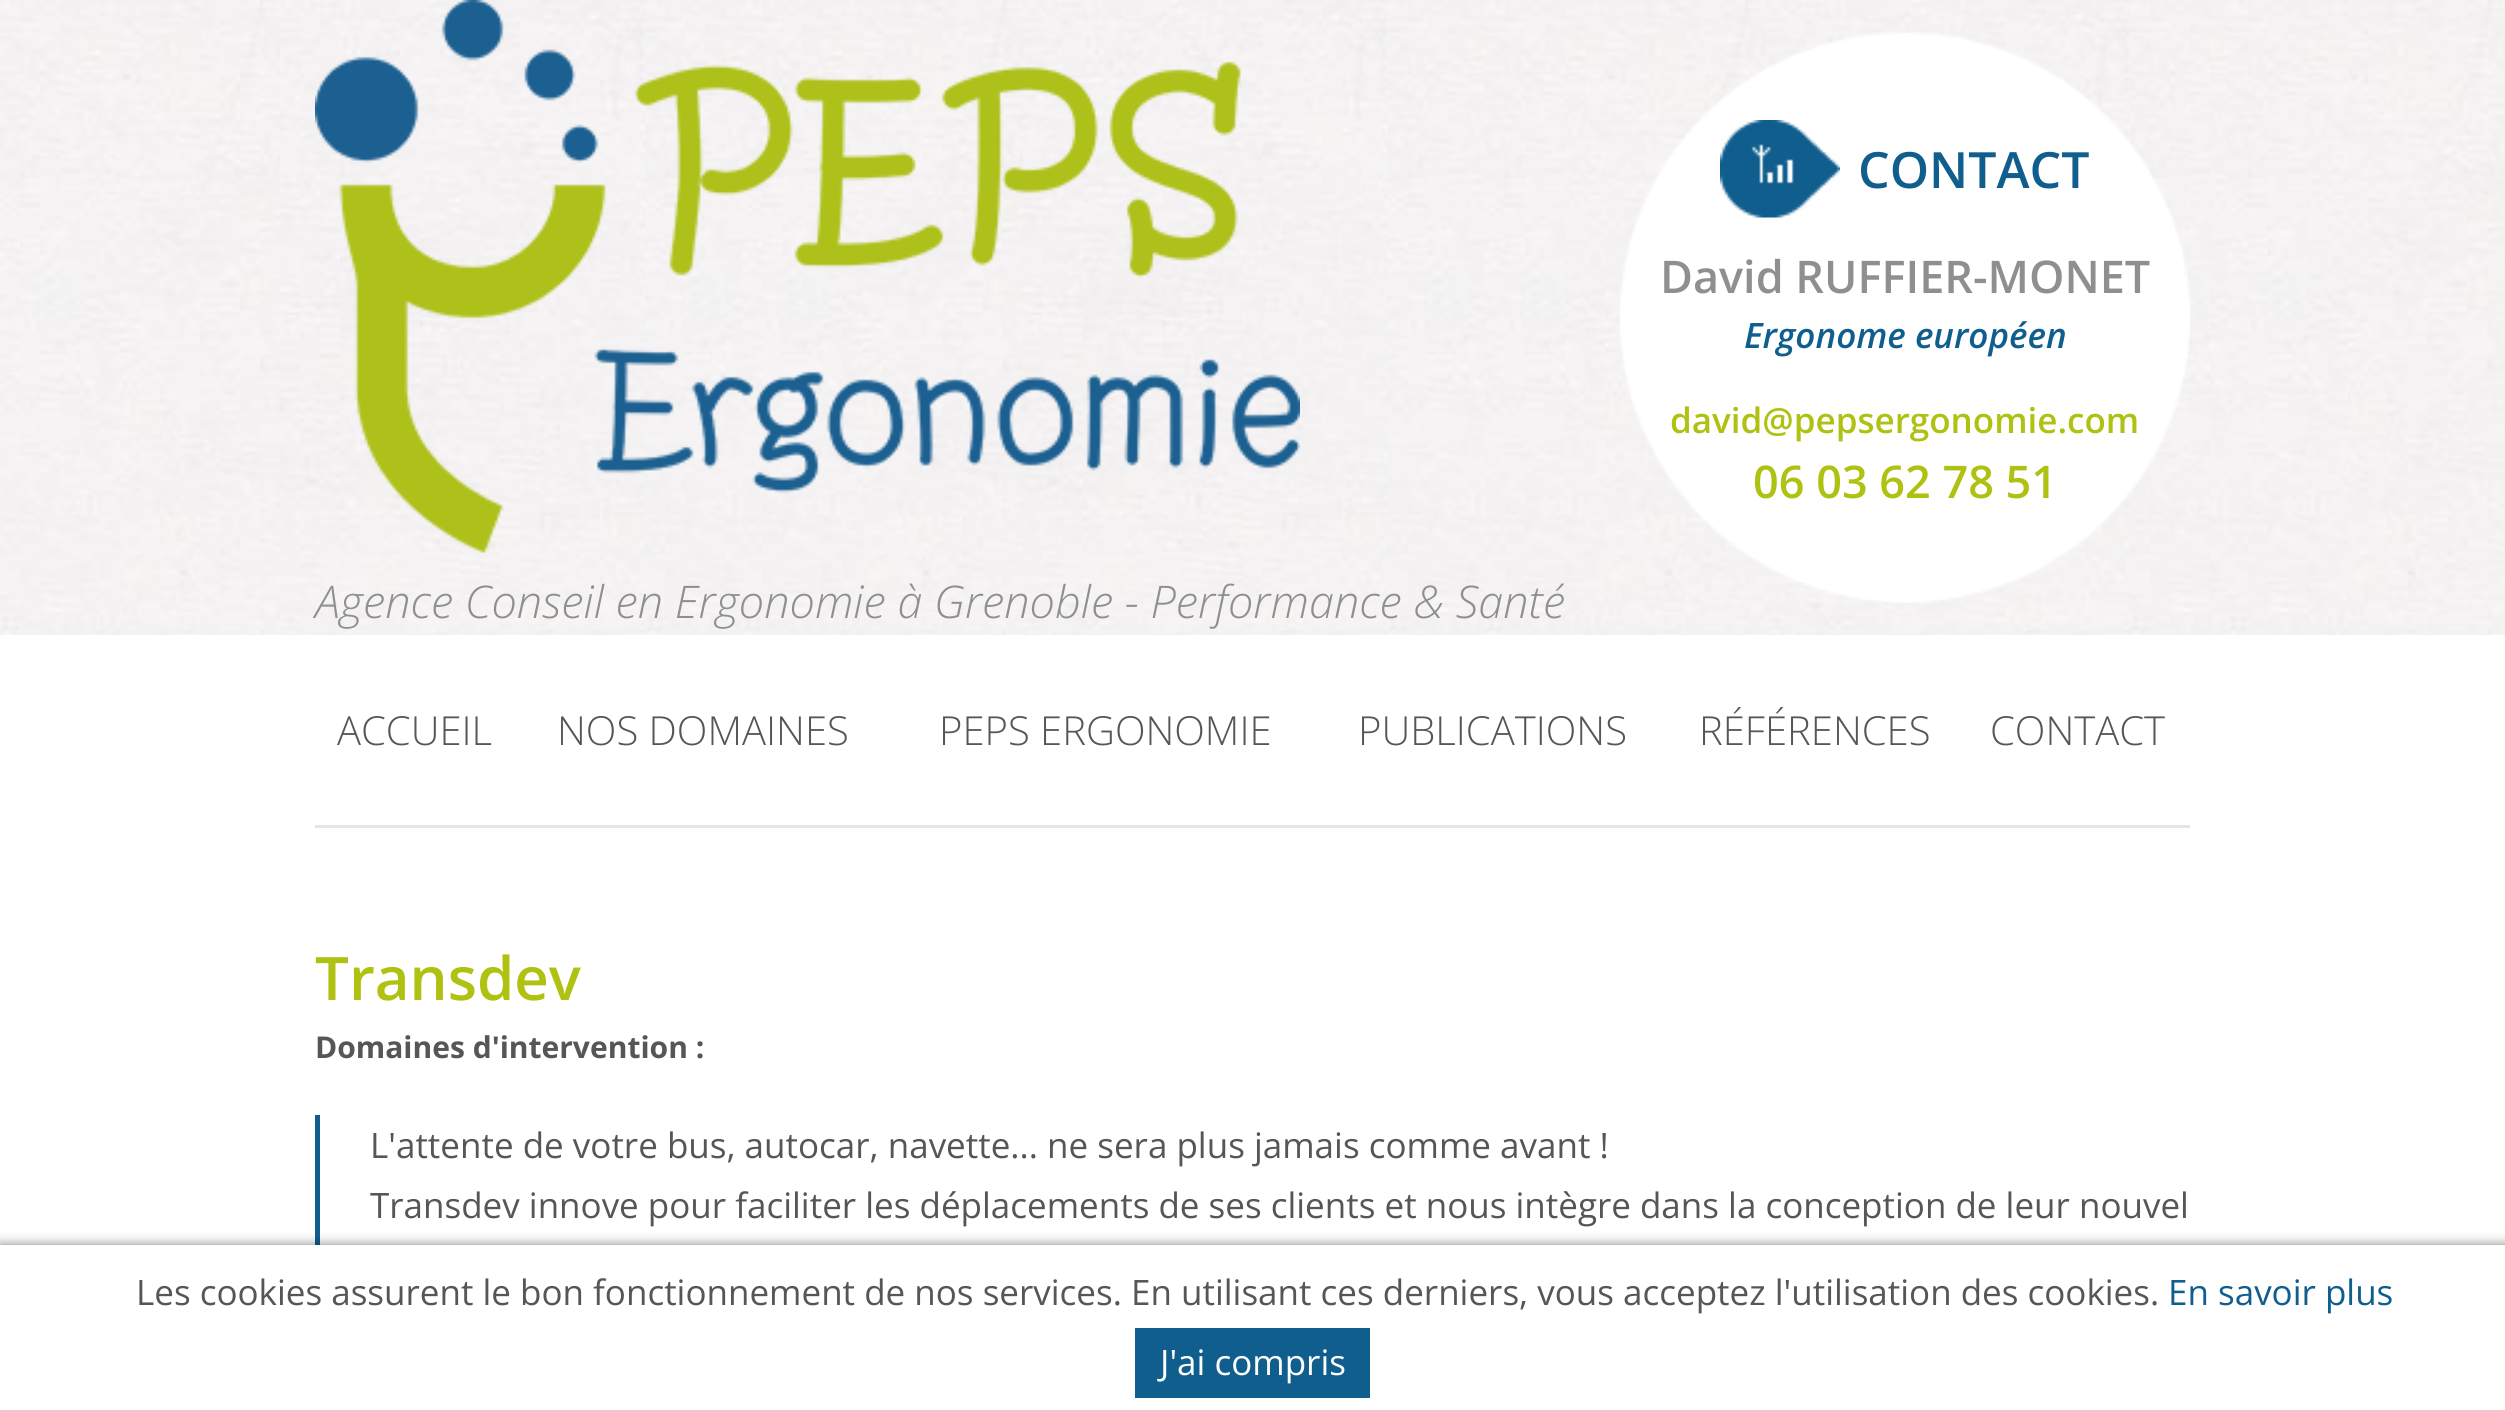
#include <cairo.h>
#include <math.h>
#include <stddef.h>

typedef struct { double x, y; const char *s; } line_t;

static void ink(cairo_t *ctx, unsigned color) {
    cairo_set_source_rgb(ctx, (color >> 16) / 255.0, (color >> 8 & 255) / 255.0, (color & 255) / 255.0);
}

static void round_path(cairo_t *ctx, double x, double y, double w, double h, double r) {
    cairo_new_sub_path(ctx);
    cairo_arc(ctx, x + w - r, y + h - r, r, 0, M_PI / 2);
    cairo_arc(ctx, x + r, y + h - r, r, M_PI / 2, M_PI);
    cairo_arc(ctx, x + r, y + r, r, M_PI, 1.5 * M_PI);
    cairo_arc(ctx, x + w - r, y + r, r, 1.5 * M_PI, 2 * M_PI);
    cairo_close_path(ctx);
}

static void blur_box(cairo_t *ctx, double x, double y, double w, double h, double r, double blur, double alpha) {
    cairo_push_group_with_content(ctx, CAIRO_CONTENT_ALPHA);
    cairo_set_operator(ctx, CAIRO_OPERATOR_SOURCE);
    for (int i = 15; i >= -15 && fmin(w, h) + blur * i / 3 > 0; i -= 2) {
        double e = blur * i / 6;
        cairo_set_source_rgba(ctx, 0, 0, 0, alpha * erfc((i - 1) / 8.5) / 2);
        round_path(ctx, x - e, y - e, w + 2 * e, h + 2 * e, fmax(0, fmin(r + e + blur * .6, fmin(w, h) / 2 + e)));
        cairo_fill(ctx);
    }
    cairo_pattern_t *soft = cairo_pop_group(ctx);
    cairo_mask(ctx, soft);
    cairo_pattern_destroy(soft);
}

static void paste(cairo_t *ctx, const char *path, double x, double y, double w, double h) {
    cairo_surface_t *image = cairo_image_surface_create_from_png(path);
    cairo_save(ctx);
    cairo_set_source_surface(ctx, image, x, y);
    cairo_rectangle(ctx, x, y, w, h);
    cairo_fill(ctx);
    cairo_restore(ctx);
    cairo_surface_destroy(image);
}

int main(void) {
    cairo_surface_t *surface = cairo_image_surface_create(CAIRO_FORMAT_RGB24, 2505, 1410);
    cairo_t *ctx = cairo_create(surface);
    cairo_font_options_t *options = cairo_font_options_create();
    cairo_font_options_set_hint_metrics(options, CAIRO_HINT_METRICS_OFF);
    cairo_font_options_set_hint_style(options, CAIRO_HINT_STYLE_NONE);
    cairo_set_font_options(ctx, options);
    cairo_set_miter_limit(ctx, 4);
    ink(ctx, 0xFFFFFF);
    cairo_paint(ctx);
    paste(ctx, "media/1.png", 0, 0, 2505, 635);
    paste(ctx, "media/2.png", 1620, 32, 570, 571);
    paste(ctx, "media/3.png", 1720, 120, 120, 98);
    cairo_select_font_face(ctx, "Open Sans SemiBold", CAIRO_FONT_SLANT_NORMAL, CAIRO_FONT_WEIGHT_NORMAL);
    cairo_set_font_size(ctx, 50);
    ink(ctx, 0x105E8E);
    cairo_move_to(ctx, 1858, 188);
    cairo_show_text(ctx, "CONTACT");
    cairo_set_font_size(ctx, 45);
    ink(ctx, 0x8F8F8F);
    cairo_move_to(ctx, 1660, 293);
    cairo_show_text(ctx, "David RUFFIER-MONET");
    cairo_select_font_face(ctx, "Open Sans SemiBold", CAIRO_FONT_SLANT_ITALIC, CAIRO_FONT_WEIGHT_NORMAL);
    cairo_set_font_size(ctx, 35);
    ink(ctx, 0x105E8E);
    cairo_move_to(ctx, 1744, 348);
    cairo_show_text(ctx, "Ergonome européen");
    cairo_select_font_face(ctx, "Open Sans SemiBold", CAIRO_FONT_SLANT_NORMAL, CAIRO_FONT_WEIGHT_NORMAL);
    ink(ctx, 0xAFC111);
    cairo_move_to(ctx, 1670, 433);
    cairo_show_text(ctx, "david@pepsergonomie.com");
    cairo_set_font_size(ctx, 45);
    cairo_move_to(ctx, 1753, 498);
    cairo_show_text(ctx, "06 03 62 78 51");
    paste(ctx, "media/4.png", 315, 0, 985, 553);
    cairo_select_font_face(ctx, "Open Sans Light", CAIRO_FONT_SLANT_ITALIC, CAIRO_FONT_WEIGHT_NORMAL);
    ink(ctx, 0x8F8F8F);
    cairo_move_to(ctx, 315, 618);
    cairo_show_text(ctx, "Agence Conseil en Ergonomie à Grenoble - Performance & Santé");
    ink(ctx, 0xE5E5E5);
    cairo_rectangle(ctx, 315, 825, 1875, 3);
    cairo_fill(ctx);
    cairo_select_font_face(ctx, "Open Sans Light", CAIRO_FONT_SLANT_NORMAL, CAIRO_FONT_WEIGHT_NORMAL);
    cairo_set_font_size(ctx, 40);
    ink(ctx, 0x565656);
    {
        static const line_t items[] = {
            {337, 745, "ACCUEIL"},
            {557, 745, "NOS DOMAINES"},
            {939, 745, "PEPS ERGONOMIE"},
            {1358, 745, "PUBLICATIONS"},
            {1699, 745, "RÉFÉRENCES"},
            {1990, 745, "CONTACT"},
        };
        for (size_t i = 0; i < sizeof items / sizeof *items; i++) {
            cairo_move_to(ctx, items[i].x, items[i].y);
            cairo_show_text(ctx, items[i].s);
        }
    }
    cairo_select_font_face(ctx, "Open Sans SemiBold", CAIRO_FONT_SLANT_NORMAL, CAIRO_FONT_WEIGHT_NORMAL);
    cairo_set_font_size(ctx, 60);
    ink(ctx, 0xAFC111);
    cairo_move_to(ctx, 315, 1000);
    cairo_show_text(ctx, "Transdev");
    cairo_select_font_face(ctx, "Open Sans", CAIRO_FONT_SLANT_NORMAL, CAIRO_FONT_WEIGHT_BOLD);
    cairo_set_font_size(ctx, 30);
    ink(ctx, 0x565656);
    cairo_move_to(ctx, 315, 1058);
    cairo_show_text(ctx, "Domaines d'intervention :");
    ink(ctx, 0x105E8E);
    cairo_rectangle(ctx, 315, 1115, 5, 130);
    cairo_fill(ctx);
    cairo_select_font_face(ctx, "Open Sans", CAIRO_FONT_SLANT_NORMAL, CAIRO_FONT_WEIGHT_NORMAL);
    cairo_set_font_size(ctx, 35);
    ink(ctx, 0x565656);
    cairo_move_to(ctx, 370, 1158);
    cairo_show_text(ctx, "L'attente de votre bus, autocar, navette... ne sera plus jamais comme avant !");
    cairo_move_to(ctx, 370, 1218);
    cairo_show_text(ctx, "Transdev innove pour faciliter les déplacements de ses clients et nous intègre dans la conception de leur nouvel");
    ink(ctx, 0x000000);
    blur_box(ctx, 0, 1245, 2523, 165, 0, 6, 0.5);
    ink(ctx, 0xFFFFFF);
    cairo_rectangle(ctx, 0, 1245, 2505, 165);
    cairo_fill(ctx);
    ink(ctx, 0x565656);
    cairo_move_to(ctx, 136, 1305);
    cairo_show_text(ctx, "Les cookies assurent le bon fonctionnement de nos services. En utilisant ces derniers, vous acceptez l'utilisation des cookies.");
    ink(ctx, 0x105E8E);
    cairo_move_to(ctx, 2168, 1305);
    cairo_show_text(ctx, "En savoir plus");
    cairo_rectangle(ctx, 1135, 1328, 235, 70);
    cairo_fill(ctx);
    ink(ctx, 0xFFFFFF);
    cairo_move_to(ctx, 1160, 1375);
    cairo_show_text(ctx, "J'ai compris");
    cairo_surface_write_to_png(surface, "image.png");
    cairo_font_options_destroy(options);
    cairo_destroy(ctx);
    cairo_surface_destroy(surface);
    return 0;
}
